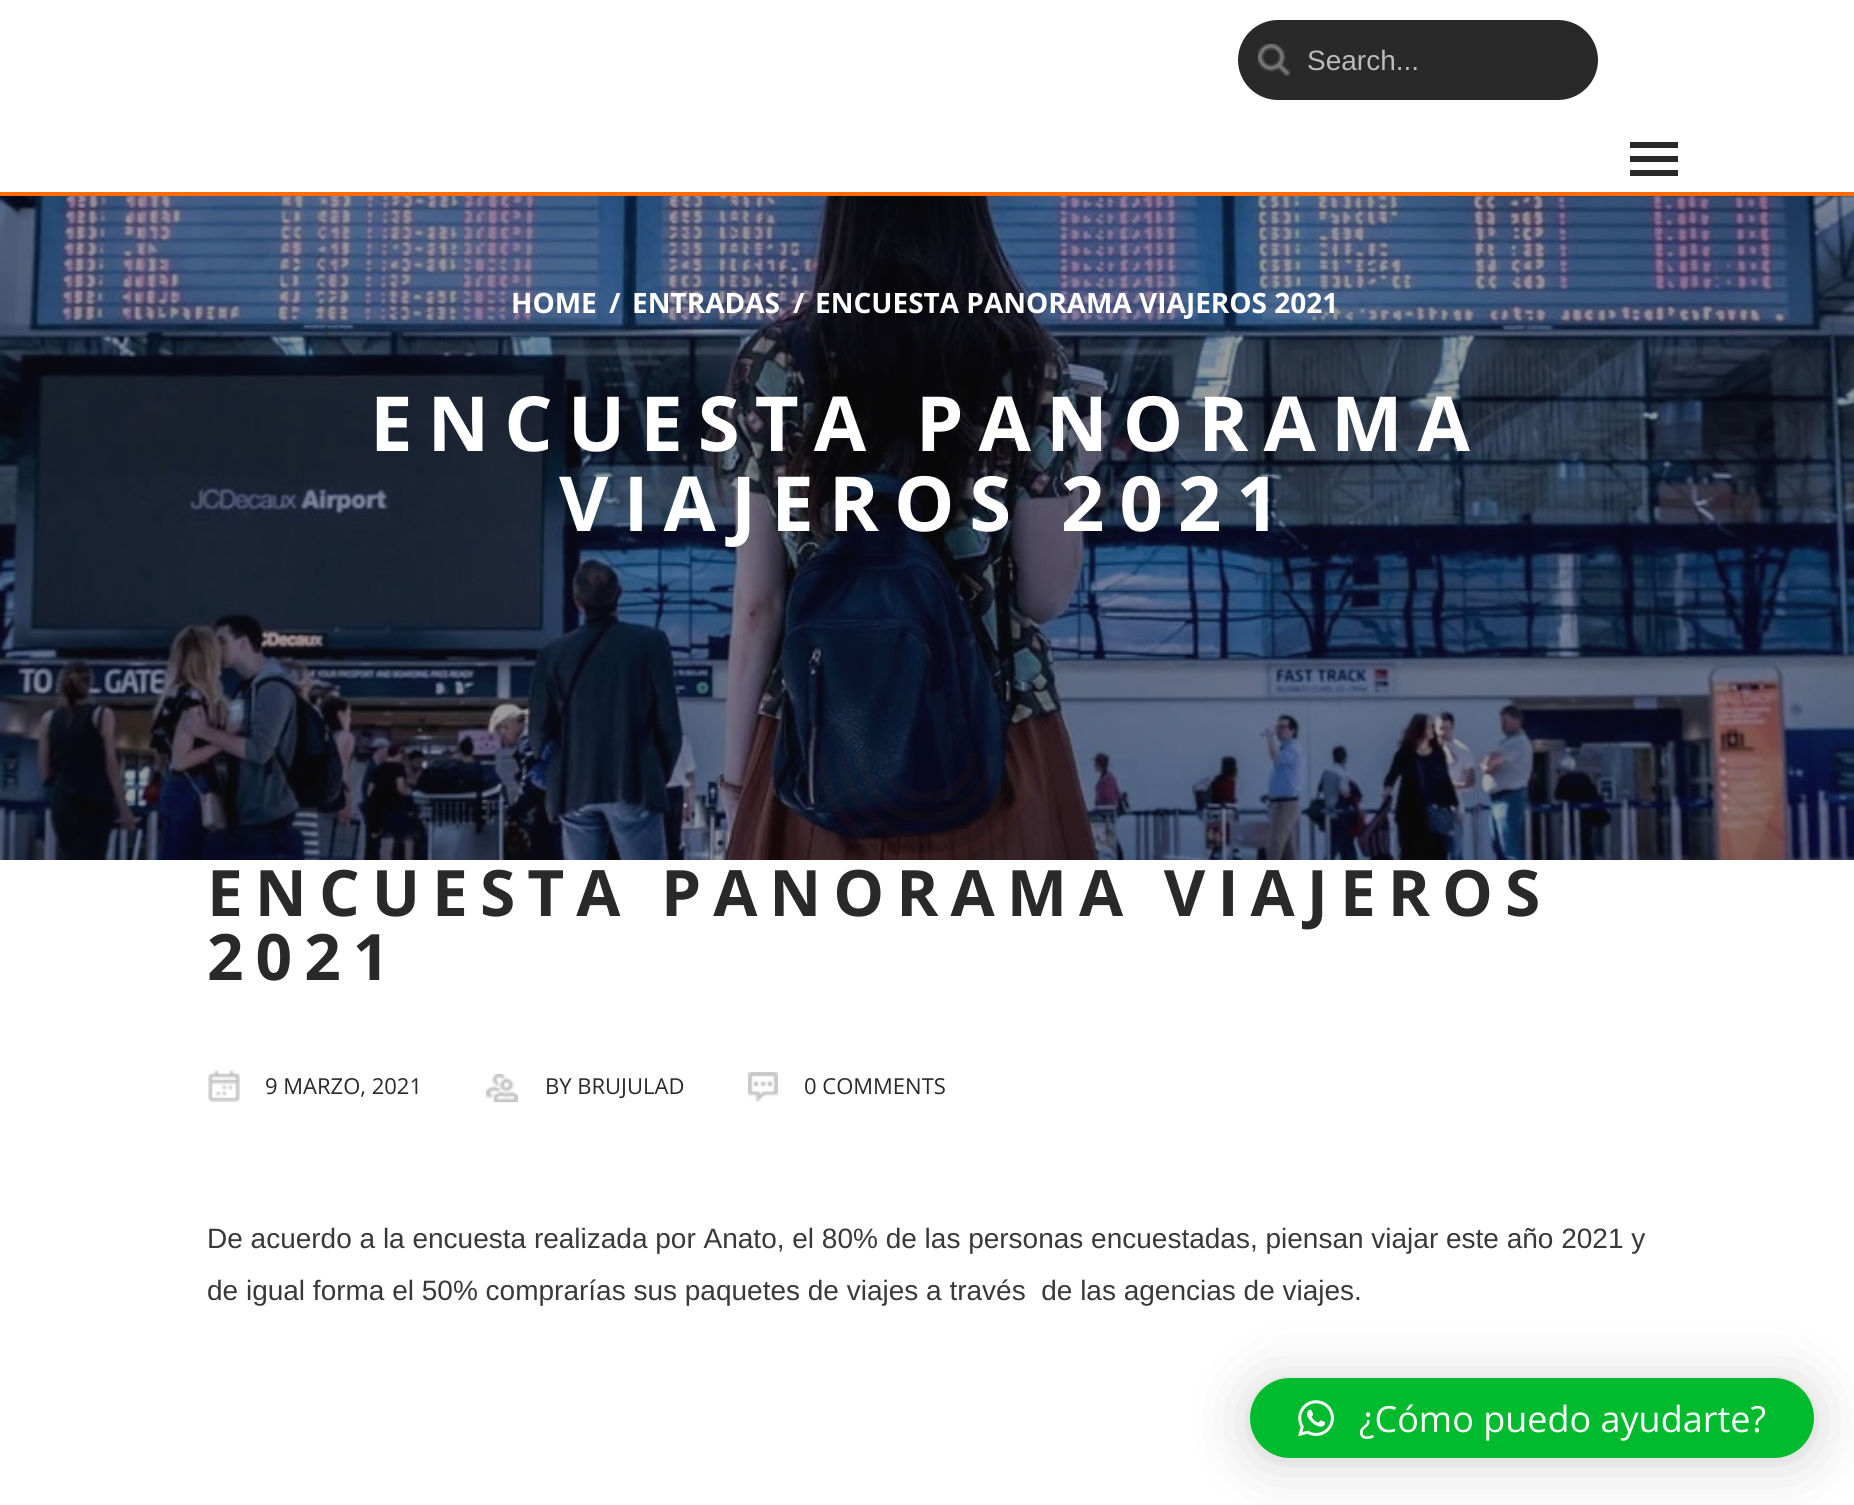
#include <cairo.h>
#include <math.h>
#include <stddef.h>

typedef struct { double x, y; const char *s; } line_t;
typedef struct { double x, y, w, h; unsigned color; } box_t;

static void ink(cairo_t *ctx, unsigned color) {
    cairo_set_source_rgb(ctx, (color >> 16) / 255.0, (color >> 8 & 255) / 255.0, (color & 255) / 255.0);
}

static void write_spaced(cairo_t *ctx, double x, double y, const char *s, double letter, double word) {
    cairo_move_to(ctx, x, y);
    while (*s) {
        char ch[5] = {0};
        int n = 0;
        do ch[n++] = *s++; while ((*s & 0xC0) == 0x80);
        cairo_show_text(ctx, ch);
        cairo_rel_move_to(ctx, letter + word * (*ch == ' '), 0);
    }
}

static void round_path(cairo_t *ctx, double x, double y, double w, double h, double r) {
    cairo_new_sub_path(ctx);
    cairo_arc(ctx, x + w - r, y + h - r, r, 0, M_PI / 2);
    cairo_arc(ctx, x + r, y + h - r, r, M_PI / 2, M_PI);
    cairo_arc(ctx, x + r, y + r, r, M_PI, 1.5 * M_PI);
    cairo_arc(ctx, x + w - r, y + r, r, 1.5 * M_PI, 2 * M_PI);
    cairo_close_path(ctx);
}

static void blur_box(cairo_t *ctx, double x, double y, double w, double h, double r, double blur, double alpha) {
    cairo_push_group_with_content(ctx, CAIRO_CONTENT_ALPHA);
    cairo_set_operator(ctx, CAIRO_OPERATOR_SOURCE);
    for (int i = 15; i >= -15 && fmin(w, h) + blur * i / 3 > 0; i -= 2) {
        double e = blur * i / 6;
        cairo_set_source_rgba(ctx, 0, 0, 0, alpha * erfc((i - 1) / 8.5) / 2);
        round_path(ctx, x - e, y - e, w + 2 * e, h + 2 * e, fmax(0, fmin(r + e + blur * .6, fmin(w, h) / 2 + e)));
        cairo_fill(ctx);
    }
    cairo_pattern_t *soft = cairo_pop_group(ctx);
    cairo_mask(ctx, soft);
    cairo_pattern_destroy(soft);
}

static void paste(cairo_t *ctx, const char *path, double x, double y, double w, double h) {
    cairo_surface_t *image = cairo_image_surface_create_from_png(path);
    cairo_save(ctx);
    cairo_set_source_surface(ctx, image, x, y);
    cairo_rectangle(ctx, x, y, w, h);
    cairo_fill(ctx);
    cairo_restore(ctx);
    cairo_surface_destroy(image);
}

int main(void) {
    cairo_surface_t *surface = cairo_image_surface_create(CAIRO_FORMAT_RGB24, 1854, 1505);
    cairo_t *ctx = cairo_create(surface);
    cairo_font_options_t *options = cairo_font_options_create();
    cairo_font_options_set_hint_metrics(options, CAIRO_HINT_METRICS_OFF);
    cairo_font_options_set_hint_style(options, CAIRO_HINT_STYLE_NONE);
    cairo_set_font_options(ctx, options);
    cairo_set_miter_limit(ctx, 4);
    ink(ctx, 0xFFFFFF);
    cairo_paint(ctx);
    ink(ctx, 0xFF6B08);
    cairo_rectangle(ctx, 0, 192, 1854, 4);
    cairo_fill(ctx);
    ink(ctx, 0x292929);
    round_path(ctx, 1238, 20, 360, 80, 40);
    cairo_fill(ctx);
    paste(ctx, "media/1.png", 1258, 44, 32, 32);
    cairo_select_font_face(ctx, "Liberation Sans", CAIRO_FONT_SLANT_NORMAL, CAIRO_FONT_WEIGHT_NORMAL);
    cairo_set_font_size(ctx, 28);
    ink(ctx, 0xBBBBBB);
    cairo_move_to(ctx, 1307, 70);
    cairo_show_text(ctx, "Search...");
    {
        static const box_t items[] = {
            {1630, 156, 48, 6, 0x292929},
            {1630, 142, 48, 6, 0x292929},
            {1630, 170, 48, 6, 0x292929},
        };
        for (size_t i = 0; i < sizeof items / sizeof *items; i++) {
            ink(ctx, items[i].color);
            cairo_rectangle(ctx, items[i].x, items[i].y, items[i].w, items[i].h);
            cairo_fill(ctx);
        }
    }
    paste(ctx, "media/2.png", 0, 196, 1854, 664);
    cairo_select_font_face(ctx, "Open Sans", CAIRO_FONT_SLANT_NORMAL, CAIRO_FONT_WEIGHT_BOLD);
    ink(ctx, 0xFFFFFF);
    {
        static const line_t items[] = {
            {511, 313, "HOME"},
            {609, 313, "/"},
            {632, 313, "ENTRADAS"},
            {793, 313, "/"},
            {815, 313, "ENCUESTA PANORAMA VIAJEROS 2021"},
        };
        for (size_t i = 0; i < sizeof items / sizeof *items; i++) {
            cairo_move_to(ctx, items[i].x, items[i].y);
            cairo_show_text(ctx, items[i].s);
        }
    }
    cairo_set_font_size(ctx, 76);
    write_spaced(ctx, 370, 451, "ENCUESTA PANORAMA", 15, 0);
    write_spaced(ctx, 559, 531, "VIAJEROS 2021", 15, 0);
    cairo_new_path(ctx);
    cairo_move_to(ctx, 1032, 753);
    cairo_curve_to(ctx, 1032, 773.5, 1026, 794, 1014.5, 811.5);
    cairo_curve_to(ctx, 970.5, 877, 871.5, 872, 834.5, 802.5);
    cairo_curve_to(ctx, 826.5, 787.5, 822, 770, 822, 753);
    cairo_set_source_rgba(ctx, 1, 0.4, 0, 0.03);
    cairo_set_line_width(ctx, 10);
    cairo_stroke(ctx);
    cairo_new_path(ctx);
    cairo_move_to(ctx, 1012, 753);
    cairo_curve_to(ctx, 1012, 836.5, 902.5, 869.5, 856.5, 800);
    cairo_curve_to(ctx, 847, 786.5, 842, 769.5, 842, 753);
    cairo_stroke(ctx);
    cairo_new_path(ctx);
    cairo_move_to(ctx, 992, 753);
    cairo_curve_to(ctx, 992, 817, 908.5, 842.5, 873, 789);
    cairo_curve_to(ctx, 866, 778.5, 862, 766, 862, 753);
    cairo_stroke(ctx);
    cairo_new_path(ctx);
    cairo_move_to(ctx, 972, 753);
    cairo_curve_to(ctx, 972, 762, 969.5, 770.5, 964.5, 778);
    cairo_curve_to(ctx, 940, 814.5, 882, 797, 882, 753);
    cairo_stroke(ctx);
    cairo_set_font_size(ctx, 64);
    ink(ctx, 0x292929);
    write_spaced(ctx, 207, 916, "ENCUESTA PANORAMA VIAJEROS", 12, 0);
    write_spaced(ctx, 207, 980, "2021", 12, 0);
    paste(ctx, "media/3.png", 208, 1070, 32, 32);
    cairo_select_font_face(ctx, "Open Sans", CAIRO_FONT_SLANT_NORMAL, CAIRO_FONT_WEIGHT_NORMAL);
    cairo_set_font_size(ctx, 22);
    cairo_move_to(ctx, 265, 1094);
    cairo_show_text(ctx, "9 MARZO, 2021");
    paste(ctx, "media/4.png", 486, 1074, 32, 28);
    cairo_move_to(ctx, 545, 1094);
    cairo_show_text(ctx, "BY BRUJULAD");
    paste(ctx, "media/5.png", 748, 1072, 30, 30);
    cairo_move_to(ctx, 804, 1094);
    cairo_show_text(ctx, "0 COMMENTS");
    cairo_select_font_face(ctx, "Liberation Sans", CAIRO_FONT_SLANT_NORMAL, CAIRO_FONT_WEIGHT_NORMAL);
    cairo_set_font_size(ctx, 28);
    ink(ctx, 0x393939);
    cairo_move_to(ctx, 207, 1248);
    cairo_show_text(ctx, "De acuerdo a la encuesta realizada por Anato, el 80% de las personas encuestadas, piensan viajar este año 2021 y");
    cairo_move_to(ctx, 207, 1300);
    cairo_show_text(ctx, "de igual forma el 50% comprarías sus paquetes de viajes a través  de las agencias de viajes.");
    ink(ctx, 0x000000);
    blur_box(ctx, 1250, 1382, 564, 80, 40, 32, 0.16);
    blur_box(ctx, 1250, 1380, 564, 80, 40, 6, 0.06);
    ink(ctx, 0x00BB2D);
    round_path(ctx, 1250, 1378, 564, 80, 40);
    cairo_fill(ctx);
    paste(ctx, "media/6.png", 1298, 1400, 36, 37);
    cairo_select_font_face(ctx, "Open Sans", CAIRO_FONT_SLANT_NORMAL, CAIRO_FONT_WEIGHT_NORMAL);
    cairo_set_font_size(ctx, 36);
    ink(ctx, 0xFFFFFF);
    cairo_move_to(ctx, 1359, 1432);
    cairo_show_text(ctx, "¿Cómo puedo ayudarte?");
    cairo_surface_write_to_png(surface, "image.png");
    cairo_font_options_destroy(options);
    cairo_destroy(ctx);
    cairo_surface_destroy(surface);
    return 0;
}
